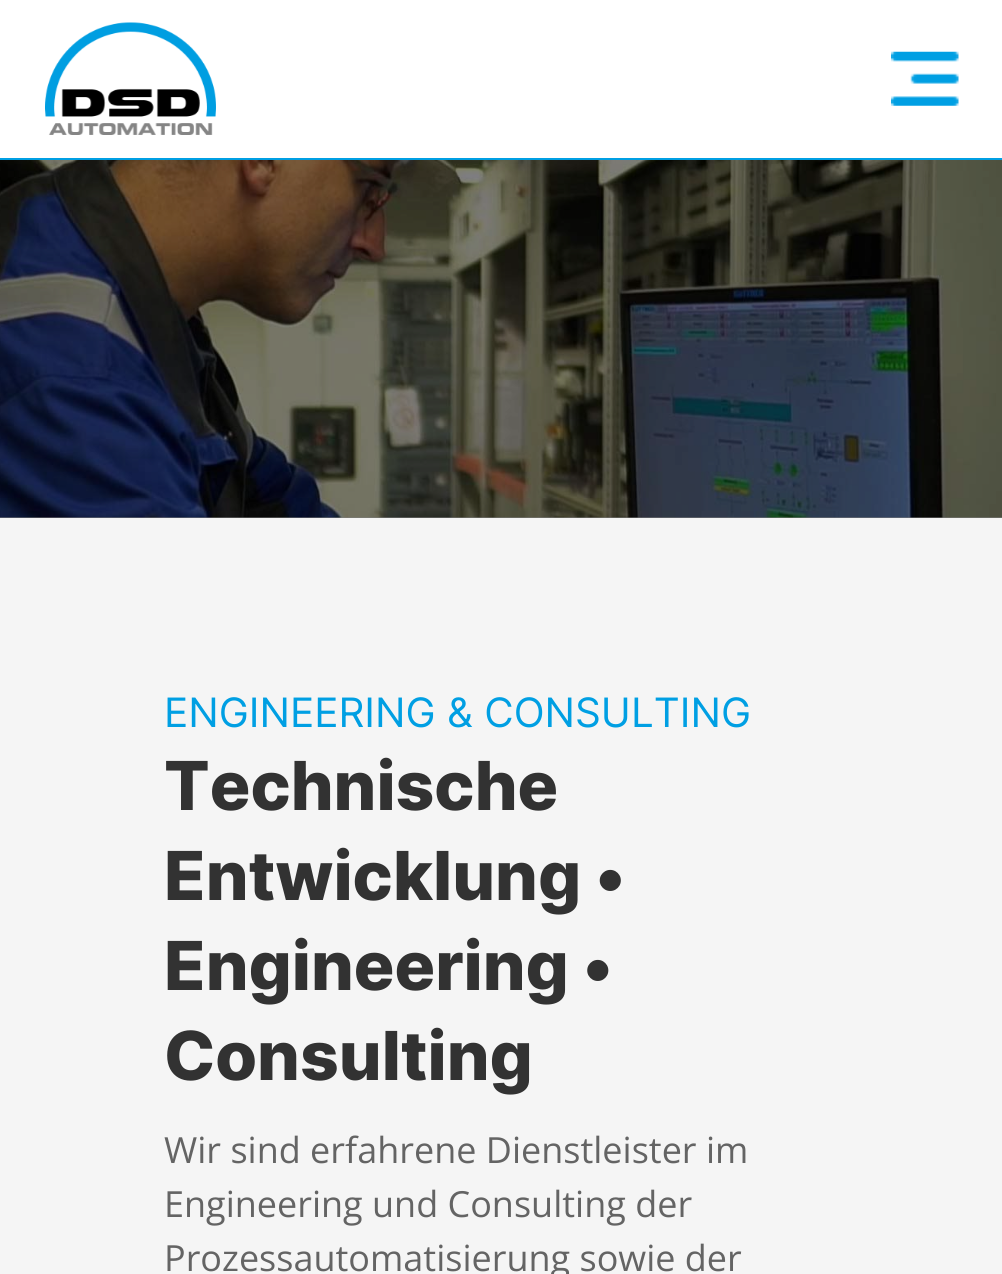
#include <cairo.h>
#include <math.h>
#include <stddef.h>

typedef struct { double x, y; const char *s; } line_t;

static void ink(cairo_t *ctx, unsigned color) {
    cairo_set_source_rgb(ctx, (color >> 16) / 255.0, (color >> 8 & 255) / 255.0, (color & 255) / 255.0);
}

static void paste(cairo_t *ctx, const char *path, double x, double y, double w, double h) {
    cairo_surface_t *image = cairo_image_surface_create_from_png(path);
    cairo_save(ctx);
    cairo_set_source_surface(ctx, image, x, y);
    cairo_rectangle(ctx, x, y, w, h);
    cairo_fill(ctx);
    cairo_restore(ctx);
    cairo_surface_destroy(image);
}

int main(void) {
    cairo_surface_t *surface = cairo_image_surface_create(CAIRO_FORMAT_RGB24, 1002, 1274);
    cairo_t *ctx = cairo_create(surface);
    cairo_font_options_t *options = cairo_font_options_create();
    cairo_font_options_set_hint_metrics(options, CAIRO_HINT_METRICS_OFF);
    cairo_font_options_set_hint_style(options, CAIRO_HINT_STYLE_NONE);
    cairo_set_font_options(ctx, options);
    cairo_set_miter_limit(ctx, 4);
    ink(ctx, 0x808080);
    cairo_paint(ctx);
    ink(ctx, 0xFFFFFF);
    cairo_rectangle(ctx, 0, 0, 1002, 158);
    cairo_fill(ctx);
    paste(ctx, "media/1.png", 45, 22, 171, 113);
    paste(ctx, "media/2.png", 891, 51, 68, 55);
    ink(ctx, 0x009FE3);
    cairo_rectangle(ctx, 0, 158, 1002, 2);
    cairo_fill(ctx);
    paste(ctx, "media/3.png", 0, 160, 1002, 358);
    ink(ctx, 0xF5F5F5);
    cairo_rectangle(ctx, 0, 518, 1002, 756);
    cairo_fill(ctx);
    cairo_select_font_face(ctx, "Inter", CAIRO_FONT_SLANT_NORMAL, CAIRO_FONT_WEIGHT_NORMAL);
    cairo_set_font_size(ctx, 40.5);
    ink(ctx, 0x009FE3);
    cairo_move_to(ctx, 164, 727);
    cairo_show_text(ctx, "ENGINEERING & CONSULTING");
    cairo_select_font_face(ctx, "Inter ExtraBold", CAIRO_FONT_SLANT_NORMAL, CAIRO_FONT_WEIGHT_NORMAL);
    cairo_set_font_size(ctx, 67.5);
    ink(ctx, 0x323232);
    {
        static const line_t items[] = {
            {164, 810, "Technische"},
            {164, 900, "Entwicklung •"},
            {164, 990, "Engineering •"},
            {164, 1080, "Consulting"},
        };
        for (size_t i = 0; i < sizeof items / sizeof *items; i++) {
            cairo_move_to(ctx, items[i].x, items[i].y);
            cairo_show_text(ctx, items[i].s);
        }
    }
    cairo_select_font_face(ctx, "Open Sans", CAIRO_FONT_SLANT_NORMAL, CAIRO_FONT_WEIGHT_NORMAL);
    cairo_set_font_size(ctx, 36);
    ink(ctx, 0x646464);
    {
        static const line_t items[] = {
            {164, 1163, "Wir sind erfahrene Dienstleister im"},
            {164, 1217, "Engineering und Consulting der"},
            {164, 1271, "Prozessautomatisierung sowie der"},
        };
        for (size_t i = 0; i < sizeof items / sizeof *items; i++) {
            cairo_move_to(ctx, items[i].x, items[i].y);
            cairo_show_text(ctx, items[i].s);
        }
    }
    cairo_surface_write_to_png(surface, "image.png");
    cairo_font_options_destroy(options);
    cairo_destroy(ctx);
    cairo_surface_destroy(surface);
    return 0;
}
